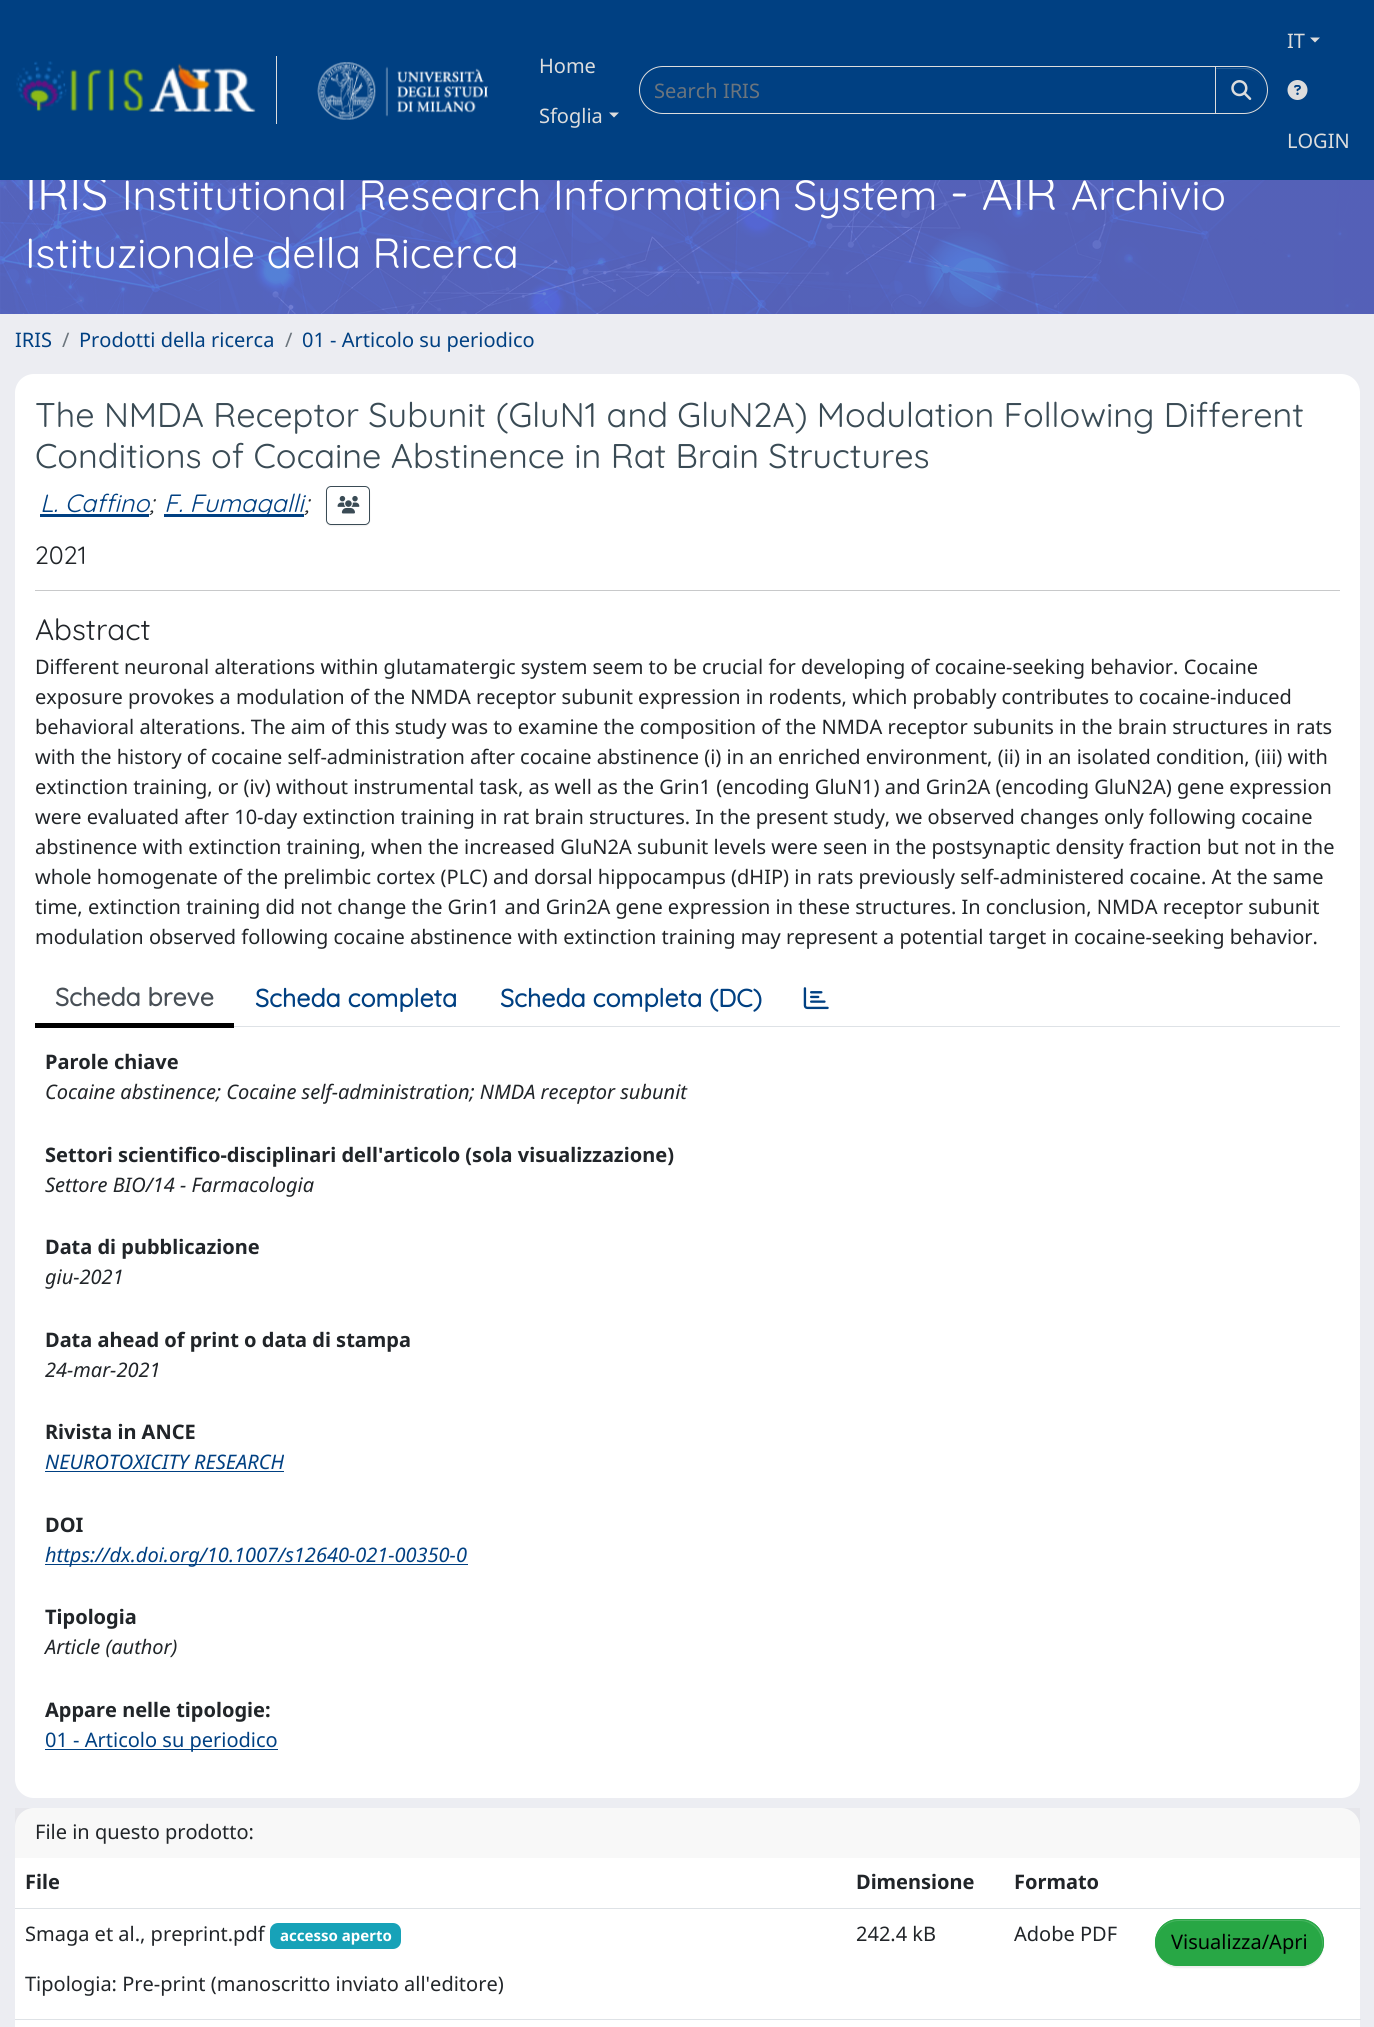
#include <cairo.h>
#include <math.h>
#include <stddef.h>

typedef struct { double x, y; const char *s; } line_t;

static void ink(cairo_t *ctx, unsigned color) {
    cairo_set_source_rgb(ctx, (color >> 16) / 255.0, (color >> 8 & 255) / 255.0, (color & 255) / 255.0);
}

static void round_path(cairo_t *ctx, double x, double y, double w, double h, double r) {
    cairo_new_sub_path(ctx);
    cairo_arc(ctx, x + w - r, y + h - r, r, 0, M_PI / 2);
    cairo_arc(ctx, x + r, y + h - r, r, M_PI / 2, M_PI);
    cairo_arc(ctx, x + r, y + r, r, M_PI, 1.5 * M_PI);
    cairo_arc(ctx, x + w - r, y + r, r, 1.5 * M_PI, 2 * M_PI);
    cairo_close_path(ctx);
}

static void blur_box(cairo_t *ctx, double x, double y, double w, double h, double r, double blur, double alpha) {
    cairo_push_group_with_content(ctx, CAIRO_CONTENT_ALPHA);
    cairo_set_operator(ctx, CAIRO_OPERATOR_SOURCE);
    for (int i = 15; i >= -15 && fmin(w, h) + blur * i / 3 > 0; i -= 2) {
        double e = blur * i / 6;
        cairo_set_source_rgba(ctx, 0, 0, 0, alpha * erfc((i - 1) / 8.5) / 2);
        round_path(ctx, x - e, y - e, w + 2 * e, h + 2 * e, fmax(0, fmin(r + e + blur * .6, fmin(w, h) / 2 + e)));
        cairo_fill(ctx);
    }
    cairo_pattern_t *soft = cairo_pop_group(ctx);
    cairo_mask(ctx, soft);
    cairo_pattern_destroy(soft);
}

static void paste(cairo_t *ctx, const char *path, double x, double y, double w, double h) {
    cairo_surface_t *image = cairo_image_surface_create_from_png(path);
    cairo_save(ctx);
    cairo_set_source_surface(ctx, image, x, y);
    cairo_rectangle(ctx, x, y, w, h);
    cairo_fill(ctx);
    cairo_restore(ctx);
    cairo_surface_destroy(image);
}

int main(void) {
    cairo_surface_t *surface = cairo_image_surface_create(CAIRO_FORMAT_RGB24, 1374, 2027);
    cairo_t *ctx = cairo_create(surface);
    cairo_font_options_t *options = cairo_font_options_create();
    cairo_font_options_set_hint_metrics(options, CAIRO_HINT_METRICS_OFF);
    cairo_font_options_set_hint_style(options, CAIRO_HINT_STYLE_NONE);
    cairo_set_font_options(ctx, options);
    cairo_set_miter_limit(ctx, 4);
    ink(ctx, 0xECEDF2);
    cairo_paint(ctx);
    paste(ctx, "media/5.png", 0, 180, 1374, 134);
    cairo_select_font_face(ctx, "Quicksand", CAIRO_FONT_SLANT_NORMAL, CAIRO_FONT_WEIGHT_NORMAL);
    cairo_set_font_size(ctx, 48);
    ink(ctx, 0xFFFFFF);
    cairo_move_to(ctx, 25, 210);
    cairo_show_text(ctx, "IRIS");
    cairo_set_font_size(ctx, 42.1);
    cairo_move_to(ctx, 122, 210);
    cairo_show_text(ctx, "Institutional Research Information System");
    cairo_set_font_size(ctx, 48);
    cairo_move_to(ctx, 950, 210);
    cairo_show_text(ctx, "- AIR");
    cairo_set_font_size(ctx, 42.1);
    cairo_move_to(ctx, 1071, 210);
    cairo_show_text(ctx, "Archivio");
    ink(ctx, 0x004082);
    cairo_rectangle(ctx, 0, 0, 1374, 180);
    cairo_fill(ctx);
    ink(ctx, 0xDDDDDD);
    cairo_rectangle(ctx, 276, 56, 1, 68);
    cairo_fill(ctx);
    paste(ctx, "media/1.png", 16, 61, 240, 51);
    paste(ctx, "media/2.png", 317, 62, 171, 58);
    cairo_select_font_face(ctx, "Noto Sans", CAIRO_FONT_SLANT_NORMAL, CAIRO_FONT_WEIGHT_NORMAL);
    cairo_set_font_size(ctx, 20);
    cairo_move_to(ctx, 539, 73);
    cairo_show_text(ctx, "Home");
    cairo_move_to(ctx, 539, 123);
    cairo_show_text(ctx, "Sfoglia");
    cairo_new_path(ctx);
    cairo_move_to(ctx, 609, 112.5);
    cairo_line_to(ctx, 619, 112.5);
    cairo_line_to(ctx, 614, 117.5);
    cairo_close_path(ctx);
    cairo_fill(ctx);
    cairo_new_path(ctx);
    cairo_move_to(ctx, 663, 66.5);
    cairo_line_to(ctx, 1215.5, 66.5);
    cairo_line_to(ctx, 1215.5, 113.5);
    cairo_line_to(ctx, 663, 113.5);
    cairo_curve_to(ctx, 650, 113.5, 639.5, 103, 639.5, 90);
    cairo_curve_to(ctx, 639.5, 77, 650, 66.5, 663, 66.5);
    cairo_close_path(ctx);
    cairo_set_line_width(ctx, 1);
    cairo_stroke(ctx);
    ink(ctx, 0x6C757D);
    cairo_move_to(ctx, 654, 98);
    cairo_show_text(ctx, "Search IRIS");
    ink(ctx, 0x000000);
    blur_box(ctx, 1215, 68, 53, 47, 23.5, 0.5, 0.07);
    ink(ctx, 0x004082);
    cairo_new_path(ctx);
    cairo_move_to(ctx, 1215, 66);
    cairo_line_to(ctx, 1244, 66);
    cairo_curve_to(ctx, 1257.5, 66, 1268, 76.5, 1268, 90);
    cairo_curve_to(ctx, 1268, 103.5, 1257.5, 114, 1244, 114);
    cairo_line_to(ctx, 1215, 114);
    cairo_close_path(ctx);
    cairo_fill(ctx);
    ink(ctx, 0x265D95);
    cairo_new_path(ctx);
    cairo_move_to(ctx, 1216, 69);
    cairo_line_to(ctx, 1244, 69);
    cairo_curve_to(ctx, 1256, 69, 1266, 79, 1266, 91);
    cairo_curve_to(ctx, 1266, 80, 1258, 71, 1248, 68);
    cairo_line_to(ctx, 1216, 68);
    cairo_close_path(ctx);
    cairo_fill(ctx);
    cairo_new_path(ctx);
    cairo_move_to(ctx, 1215.5, 66.5);
    cairo_line_to(ctx, 1244, 66.5);
    cairo_curve_to(ctx, 1257, 66.5, 1267.5, 77, 1267.5, 90);
    cairo_curve_to(ctx, 1267.5, 103, 1257, 113.5, 1244, 113.5);
    cairo_line_to(ctx, 1215.5, 113.5);
    cairo_close_path(ctx);
    ink(ctx, 0xDDDDDD);
    cairo_stroke(ctx);
    paste(ctx, "media/3.png", 1231, 80, 21, 20);
    cairo_move_to(ctx, 1287, 48);
    cairo_show_text(ctx, "IT");
    cairo_new_path(ctx);
    cairo_move_to(ctx, 1310, 37.5);
    cairo_line_to(ctx, 1320, 37.5);
    cairo_line_to(ctx, 1315, 42.5);
    cairo_close_path(ctx);
    cairo_fill(ctx);
    paste(ctx, "media/4.png", 1287, 80, 21, 20);
    cairo_move_to(ctx, 1287, 148);
    cairo_show_text(ctx, "LOGIN");
    cairo_select_font_face(ctx, "Quicksand", CAIRO_FONT_SLANT_NORMAL, CAIRO_FONT_WEIGHT_NORMAL);
    cairo_set_font_size(ctx, 42.1);
    ink(ctx, 0xFFFFFF);
    cairo_move_to(ctx, 25, 268);
    cairo_show_text(ctx, "Istituzionale della Ricerca");
    cairo_select_font_face(ctx, "Noto Sans", CAIRO_FONT_SLANT_NORMAL, CAIRO_FONT_WEIGHT_NORMAL);
    cairo_set_font_size(ctx, 20);
    ink(ctx, 0x004082);
    cairo_move_to(ctx, 15, 347);
    cairo_show_text(ctx, "IRIS");
    ink(ctx, 0x6C757D);
    cairo_move_to(ctx, 62, 347);
    cairo_show_text(ctx, "/");
    ink(ctx, 0x004082);
    cairo_move_to(ctx, 79, 347);
    cairo_show_text(ctx, "Prodotti della ricerca");
    ink(ctx, 0x6C757D);
    cairo_move_to(ctx, 285, 347);
    cairo_show_text(ctx, "/");
    ink(ctx, 0x004082);
    cairo_move_to(ctx, 302, 347);
    cairo_show_text(ctx, "01 - Articolo su periodico");
    ink(ctx, 0xFFFFFF);
    round_path(ctx, 15, 374, 1345, 1424, 19);
    cairo_fill(ctx);
    cairo_select_font_face(ctx, "Quicksand", CAIRO_FONT_SLANT_NORMAL, CAIRO_FONT_WEIGHT_NORMAL);
    cairo_set_font_size(ctx, 34.25);
    ink(ctx, 0x3A4B55);
    cairo_move_to(ctx, 35, 427);
    cairo_show_text(ctx, "The NMDA Receptor Subunit (GluN1 and GluN2A) Modulation Following Different");
    cairo_move_to(ctx, 35, 468);
    cairo_show_text(ctx, "Conditions of Cocaine Abstinence in Rat Brain Structures");
    cairo_select_font_face(ctx, "Quicksand", CAIRO_FONT_SLANT_ITALIC, CAIRO_FONT_WEIGHT_NORMAL);
    cairo_set_font_size(ctx, 25);
    ink(ctx, 0x004082);
    cairo_move_to(ctx, 40, 512);
    cairo_show_text(ctx, "L. Caffino");
    ink(ctx, 0x212529);
    cairo_move_to(ctx, 149, 512);
    cairo_show_text(ctx, ";");
    ink(ctx, 0x004082);
    cairo_rectangle(ctx, 40, 514, 109, 3);
    cairo_fill(ctx);
    cairo_rectangle(ctx, 164, 514, 140, 3);
    cairo_fill(ctx);
    cairo_move_to(ctx, 164, 512);
    cairo_show_text(ctx, "F. Fumagalli");
    ink(ctx, 0x212529);
    cairo_move_to(ctx, 304, 512);
    cairo_show_text(ctx, ";");
    cairo_save(ctx);
    cairo_set_fill_rule(ctx, CAIRO_FILL_RULE_EVEN_ODD);
    cairo_new_path(ctx);
    cairo_move_to(ctx, 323, 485);
    cairo_line_to(ctx, 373, 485);
    cairo_line_to(ctx, 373, 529);
    cairo_line_to(ctx, 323, 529);
    cairo_close_path(ctx);
    cairo_move_to(ctx, 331, 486);
    cairo_line_to(ctx, 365, 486);
    cairo_curve_to(ctx, 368, 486, 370, 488, 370, 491);
    cairo_line_to(ctx, 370, 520);
    cairo_curve_to(ctx, 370, 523, 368, 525, 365, 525);
    cairo_line_to(ctx, 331, 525);
    cairo_curve_to(ctx, 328, 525, 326, 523, 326, 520);
    cairo_line_to(ctx, 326, 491);
    cairo_curve_to(ctx, 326, 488, 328, 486, 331, 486);
    cairo_close_path(ctx);
    cairo_clip(ctx);
    ink(ctx, 0x000000);
    blur_box(ctx, 326, 488, 44, 38, 5, 0.5, 0.07);
    cairo_restore(ctx);
    round_path(ctx, 326.5, 486.5, 43, 38, 4.5);
    ink(ctx, 0x3A4B55);
    cairo_stroke(ctx);
    paste(ctx, "media/6.png", 337, 495, 23, 19);
    cairo_select_font_face(ctx, "Quicksand", CAIRO_FONT_SLANT_NORMAL, CAIRO_FONT_WEIGHT_NORMAL);
    ink(ctx, 0x212529);
    cairo_move_to(ctx, 35, 564);
    cairo_show_text(ctx, "2021");
    ink(ctx, 0xC8C9CA);
    cairo_rectangle(ctx, 35, 590, 1305, 1);
    cairo_fill(ctx);
    cairo_set_font_size(ctx, 29.5);
    ink(ctx, 0x212529);
    cairo_move_to(ctx, 35, 640);
    cairo_show_text(ctx, "Abstract");
    cairo_select_font_face(ctx, "Noto Sans", CAIRO_FONT_SLANT_NORMAL, CAIRO_FONT_WEIGHT_NORMAL);
    cairo_set_font_size(ctx, 20);
    {
        static const line_t items[] = {
            {35, 674, "Different neuronal alterations within glutamatergic system seem to be crucial for developing of cocaine-seeking behavior. Cocaine"},
            {35, 704, "exposure provokes a modulation of the NMDA receptor subunit expression in rodents, which probably contributes to cocaine-induced"},
            {35, 734, "behavioral alterations. The aim of this study was to examine the composition of the NMDA receptor subunits in the brain structures in rats"},
            {35, 764, "with the history of cocaine self-administration after cocaine abstinence (i) in an enriched environment, (ii) in an isolated condition, (iii) with"},
            {35, 794, "extinction training, or (iv) without instrumental task, as well as the Grin1 (encoding GluN1) and Grin2A (encoding GluN2A) gene expression"},
            {35, 824, "were evaluated after 10-day extinction training in rat brain structures. In the present study, we observed changes only following cocaine"},
            {35, 854, "abstinence with extinction training, when the increased GluN2A subunit levels were seen in the postsynaptic density fraction but not in the"},
            {35, 884, "whole homogenate of the prelimbic cortex (PLC) and dorsal hippocampus (dHIP) in rats previously self-administered cocaine. At the same"},
            {35, 914, "time, extinction training did not change the Grin1 and Grin2A gene expression in these structures. In conclusion, NMDA receptor subunit"},
            {35, 944, "modulation observed following cocaine abstinence with extinction training may represent a potential target in cocaine-seeking behavior."},
        };
        for (size_t i = 0; i < sizeof items / sizeof *items; i++) {
            cairo_move_to(ctx, items[i].x, items[i].y);
            cairo_show_text(ctx, items[i].s);
        }
    }
    ink(ctx, 0xDEE2E6);
    cairo_rectangle(ctx, 234, 1026, 1106, 1);
    cairo_fill(ctx);
    ink(ctx, 0x000000);
    cairo_rectangle(ctx, 35, 1023, 199, 5);
    cairo_fill(ctx);
    cairo_select_font_face(ctx, "Quicksand", CAIRO_FONT_SLANT_NORMAL, CAIRO_FONT_WEIGHT_BOLD);
    cairo_set_font_size(ctx, 25);
    ink(ctx, 0x495057);
    cairo_move_to(ctx, 55, 1006);
    cairo_show_text(ctx, "Scheda breve");
    ink(ctx, 0x004082);
    cairo_move_to(ctx, 255, 1007);
    cairo_show_text(ctx, "Scheda completa");
    cairo_move_to(ctx, 500, 1007);
    cairo_show_text(ctx, "Scheda completa (DC)");
    paste(ctx, "media/7.png", 803, 987, 26, 23);
    cairo_select_font_face(ctx, "Noto Sans", CAIRO_FONT_SLANT_NORMAL, CAIRO_FONT_WEIGHT_BOLD);
    cairo_set_font_size(ctx, 20);
    ink(ctx, 0x212529);
    cairo_move_to(ctx, 45, 1069);
    cairo_show_text(ctx, "Parole chiave");
    cairo_select_font_face(ctx, "Noto Sans", CAIRO_FONT_SLANT_ITALIC, CAIRO_FONT_WEIGHT_NORMAL);
    cairo_move_to(ctx, 45, 1099);
    cairo_show_text(ctx, "Cocaine abstinence; Cocaine self-administration; NMDA receptor subunit");
    cairo_select_font_face(ctx, "Noto Sans", CAIRO_FONT_SLANT_NORMAL, CAIRO_FONT_WEIGHT_BOLD);
    cairo_move_to(ctx, 45, 1162);
    cairo_show_text(ctx, "Settori scientifico-disciplinari dell'articolo (sola visualizzazione)");
    cairo_select_font_face(ctx, "Noto Sans", CAIRO_FONT_SLANT_ITALIC, CAIRO_FONT_WEIGHT_NORMAL);
    cairo_move_to(ctx, 45, 1192);
    cairo_show_text(ctx, "Settore BIO/14 - Farmacologia");
    cairo_select_font_face(ctx, "Noto Sans", CAIRO_FONT_SLANT_NORMAL, CAIRO_FONT_WEIGHT_BOLD);
    cairo_move_to(ctx, 45, 1254);
    cairo_show_text(ctx, "Data di pubblicazione");
    cairo_select_font_face(ctx, "Noto Sans", CAIRO_FONT_SLANT_ITALIC, CAIRO_FONT_WEIGHT_NORMAL);
    cairo_move_to(ctx, 45, 1284);
    cairo_show_text(ctx, "giu-2021");
    cairo_select_font_face(ctx, "Noto Sans", CAIRO_FONT_SLANT_NORMAL, CAIRO_FONT_WEIGHT_BOLD);
    cairo_move_to(ctx, 45, 1347);
    cairo_show_text(ctx, "Data ahead of print o data di stampa");
    cairo_select_font_face(ctx, "Noto Sans", CAIRO_FONT_SLANT_ITALIC, CAIRO_FONT_WEIGHT_NORMAL);
    cairo_move_to(ctx, 45, 1377);
    cairo_show_text(ctx, "24-mar-2021");
    cairo_select_font_face(ctx, "Noto Sans", CAIRO_FONT_SLANT_NORMAL, CAIRO_FONT_WEIGHT_BOLD);
    cairo_move_to(ctx, 45, 1439);
    cairo_show_text(ctx, "Rivista in ANCE");
    cairo_select_font_face(ctx, "Noto Sans", CAIRO_FONT_SLANT_ITALIC, CAIRO_FONT_WEIGHT_NORMAL);
    ink(ctx, 0x004082);
    cairo_move_to(ctx, 45, 1469);
    cairo_show_text(ctx, "NEUROTOXICITY RESEARCH");
    cairo_rectangle(ctx, 45, 1471, 239, 1);
    cairo_fill(ctx);
    cairo_select_font_face(ctx, "Noto Sans", CAIRO_FONT_SLANT_NORMAL, CAIRO_FONT_WEIGHT_BOLD);
    ink(ctx, 0x212529);
    cairo_move_to(ctx, 45, 1532);
    cairo_show_text(ctx, "DOI");
    ink(ctx, 0x004082);
    cairo_rectangle(ctx, 45, 1564, 423, 1);
    cairo_fill(ctx);
    cairo_select_font_face(ctx, "Noto Sans", CAIRO_FONT_SLANT_ITALIC, CAIRO_FONT_WEIGHT_NORMAL);
    cairo_move_to(ctx, 45, 1562);
    cairo_show_text(ctx, "https://dx.doi.org/10.1007/s12640-021-00350-0");
    cairo_select_font_face(ctx, "Noto Sans", CAIRO_FONT_SLANT_NORMAL, CAIRO_FONT_WEIGHT_BOLD);
    ink(ctx, 0x212529);
    cairo_move_to(ctx, 45, 1624);
    cairo_show_text(ctx, "Tipologia");
    cairo_select_font_face(ctx, "Noto Sans", CAIRO_FONT_SLANT_ITALIC, CAIRO_FONT_WEIGHT_NORMAL);
    cairo_move_to(ctx, 45, 1654);
    cairo_show_text(ctx, "Article (author)");
    cairo_select_font_face(ctx, "Noto Sans", CAIRO_FONT_SLANT_NORMAL, CAIRO_FONT_WEIGHT_BOLD);
    cairo_move_to(ctx, 45, 1717);
    cairo_show_text(ctx, "Appare nelle tipologie:");
    ink(ctx, 0x004082);
    cairo_rectangle(ctx, 45, 1749, 233, 1);
    cairo_fill(ctx);
    cairo_select_font_face(ctx, "Noto Sans", CAIRO_FONT_SLANT_NORMAL, CAIRO_FONT_WEIGHT_NORMAL);
    cairo_move_to(ctx, 45, 1747);
    cairo_show_text(ctx, "01 - Articolo su periodico");
    ink(ctx, 0xFFFFFF);
    round_path(ctx, 15, 1808, 1345, 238, 19);
    cairo_fill(ctx);
    cairo_set_source_rgba(ctx, 0, 0, 0, 0.03);
    cairo_rectangle(ctx, 15, 1808, 1345, 50);
    cairo_fill(ctx);
    ink(ctx, 0x212529);
    cairo_move_to(ctx, 35, 1839);
    cairo_show_text(ctx, "File in questo prodotto:");
    cairo_select_font_face(ctx, "Noto Sans", CAIRO_FONT_SLANT_NORMAL, CAIRO_FONT_WEIGHT_BOLD);
    {
        static const line_t items[] = {
            {25, 1889, "File"},
            {856, 1889, "Dimensione"},
            {1014, 1889, "Formato"},
        };
        for (size_t i = 0; i < sizeof items / sizeof *items; i++) {
            cairo_move_to(ctx, items[i].x, items[i].y);
            cairo_show_text(ctx, items[i].s);
        }
    }
    ink(ctx, 0xDEE2E6);
    cairo_rectangle(ctx, 15, 1908, 1346, 1);
    cairo_fill(ctx);
    cairo_select_font_face(ctx, "Noto Sans", CAIRO_FONT_SLANT_NORMAL, CAIRO_FONT_WEIGHT_NORMAL);
    ink(ctx, 0x212529);
    cairo_move_to(ctx, 25, 1941);
    cairo_show_text(ctx, "Smaga et al., preprint.pdf");
    ink(ctx, 0x17A2B8);
    round_path(ctx, 270, 1923, 131, 26, 8);
    cairo_fill(ctx);
    cairo_select_font_face(ctx, "Noto Sans", CAIRO_FONT_SLANT_NORMAL, CAIRO_FONT_WEIGHT_BOLD);
    cairo_set_font_size(ctx, 15);
    ink(ctx, 0xFFFFFF);
    cairo_move_to(ctx, 280, 1941);
    cairo_show_text(ctx, "accesso aperto");
    cairo_select_font_face(ctx, "Noto Sans", CAIRO_FONT_SLANT_NORMAL, CAIRO_FONT_WEIGHT_NORMAL);
    cairo_set_font_size(ctx, 20);
    ink(ctx, 0x212529);
    {
        static const line_t items[] = {
            {25, 1991, "Tipologia: Pre-print (manoscritto inviato all'editore)"},
            {856, 1941, "242.4 kB"},
            {1014, 1941, "Adobe PDF"},
        };
        for (size_t i = 0; i < sizeof items / sizeof *items; i++) {
            cairo_move_to(ctx, items[i].x, items[i].y);
            cairo_show_text(ctx, items[i].s);
        }
    }
    ink(ctx, 0xDEE2E6);
    cairo_rectangle(ctx, 15, 2019, 1346, 1);
    cairo_fill(ctx);
    ink(ctx, 0x000000);
    blur_box(ctx, 1155, 1920, 169, 48, 24, 0.5, 0.07);
    ink(ctx, 0x28A745);
    round_path(ctx, 1155, 1919, 169, 47, 23.5);
    cairo_fill(ctx);
    ink(ctx, 0x48B461);
    cairo_new_path(ctx);
    cairo_move_to(ctx, 1179, 1921);
    cairo_line_to(ctx, 1300, 1921);
    cairo_curve_to(ctx, 1312, 1921, 1322, 1931, 1322, 1944);
    cairo_curve_to(ctx, 1322, 1949, 1320, 1954, 1317, 1957);
    cairo_curve_to(ctx, 1321, 1953, 1323, 1948, 1323, 1942);
    cairo_curve_to(ctx, 1323, 1930, 1313, 1920, 1300, 1920);
    cairo_line_to(ctx, 1178, 1920);
    cairo_curve_to(ctx, 1166, 1920, 1156, 1930, 1156, 1942);
    cairo_line_to(ctx, 1156, 1943);
    cairo_curve_to(ctx, 1156, 1931, 1166, 1921, 1179, 1921);
    cairo_close_path(ctx);
    cairo_fill(ctx);
    round_path(ctx, 1155.5, 1919.5, 168, 46, 23);
    ink(ctx, 0x28A745);
    cairo_stroke(ctx);
    ink(ctx, 0x000000);
    cairo_move_to(ctx, 1171, 1949);
    cairo_show_text(ctx, "Visualizza/Apri");
    cairo_surface_write_to_png(surface, "image.png");
    cairo_font_options_destroy(options);
    cairo_destroy(ctx);
    cairo_surface_destroy(surface);
    return 0;
}
